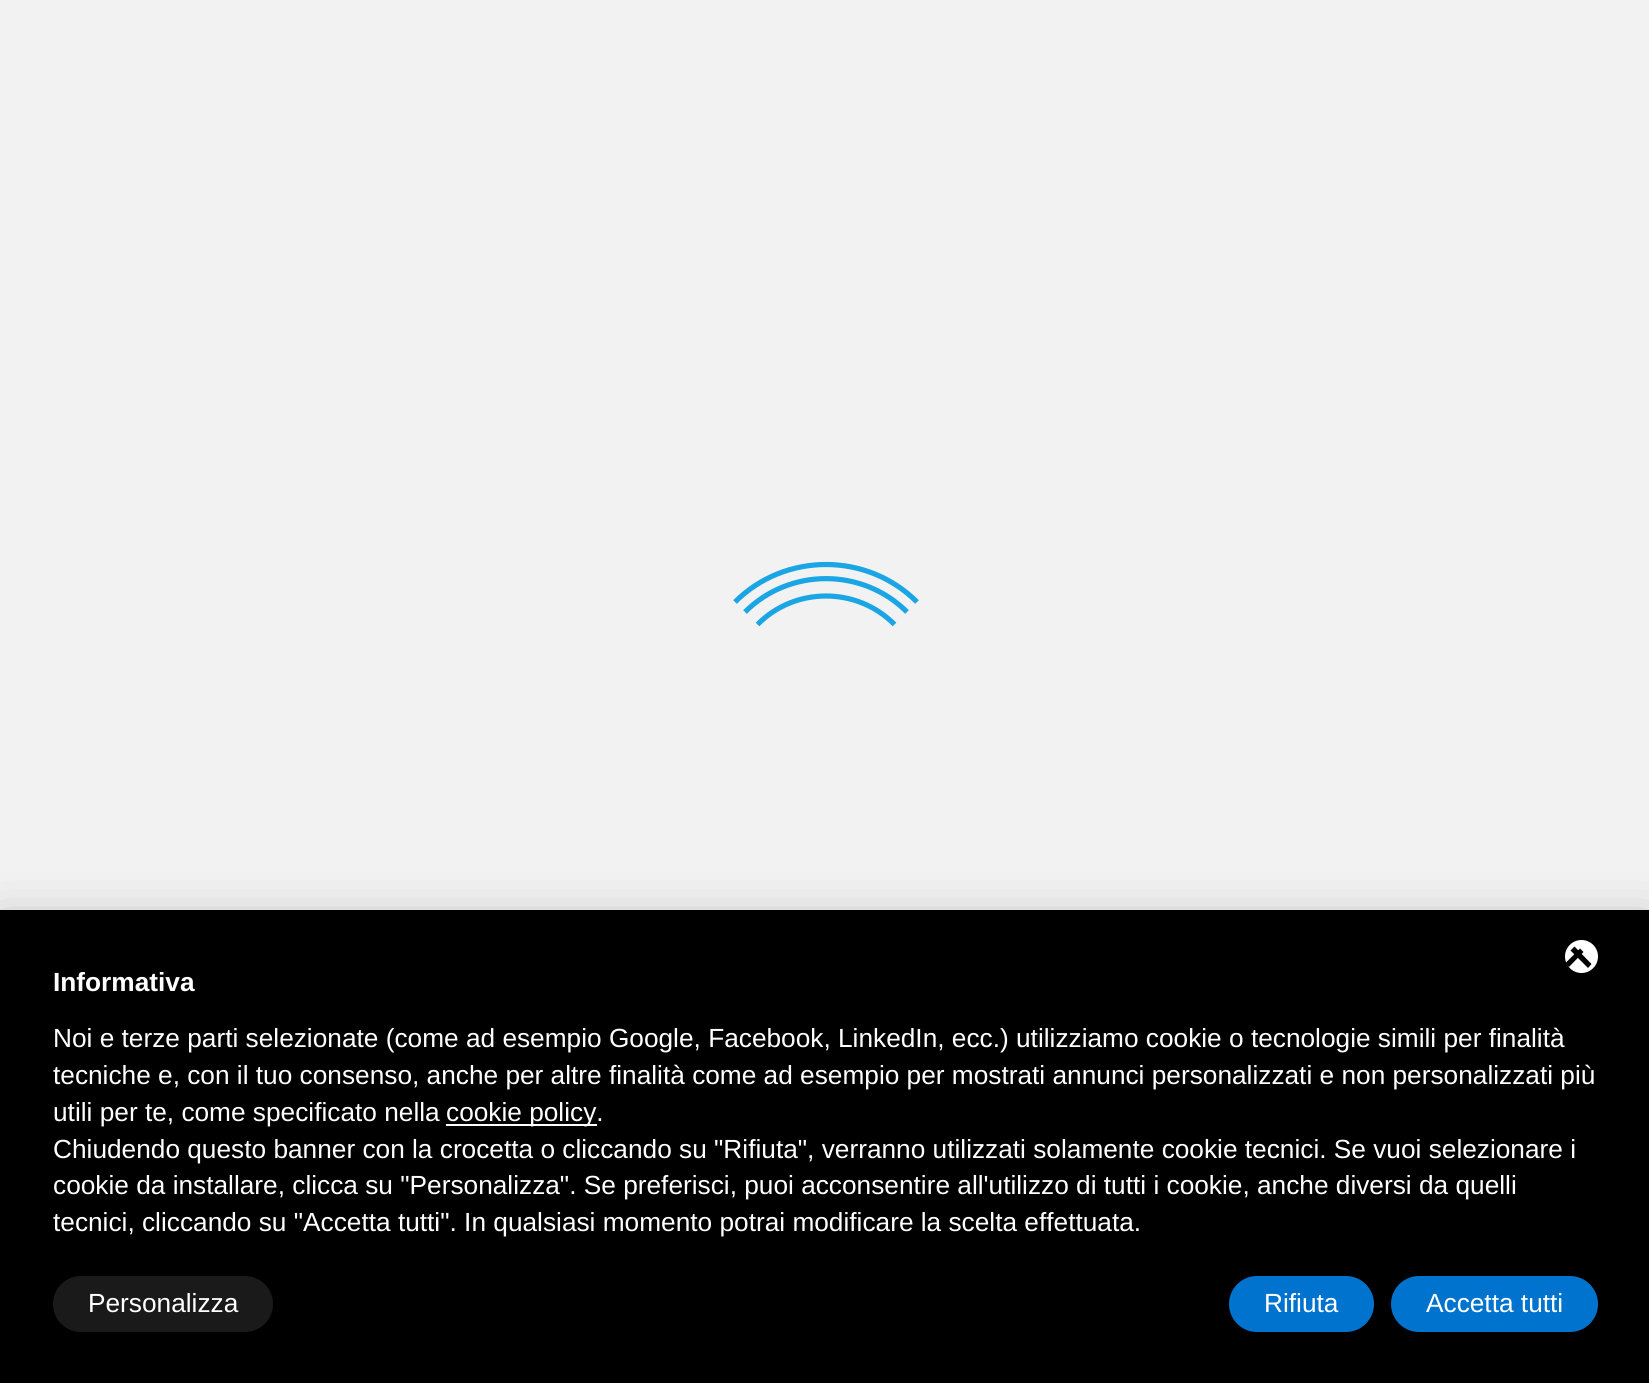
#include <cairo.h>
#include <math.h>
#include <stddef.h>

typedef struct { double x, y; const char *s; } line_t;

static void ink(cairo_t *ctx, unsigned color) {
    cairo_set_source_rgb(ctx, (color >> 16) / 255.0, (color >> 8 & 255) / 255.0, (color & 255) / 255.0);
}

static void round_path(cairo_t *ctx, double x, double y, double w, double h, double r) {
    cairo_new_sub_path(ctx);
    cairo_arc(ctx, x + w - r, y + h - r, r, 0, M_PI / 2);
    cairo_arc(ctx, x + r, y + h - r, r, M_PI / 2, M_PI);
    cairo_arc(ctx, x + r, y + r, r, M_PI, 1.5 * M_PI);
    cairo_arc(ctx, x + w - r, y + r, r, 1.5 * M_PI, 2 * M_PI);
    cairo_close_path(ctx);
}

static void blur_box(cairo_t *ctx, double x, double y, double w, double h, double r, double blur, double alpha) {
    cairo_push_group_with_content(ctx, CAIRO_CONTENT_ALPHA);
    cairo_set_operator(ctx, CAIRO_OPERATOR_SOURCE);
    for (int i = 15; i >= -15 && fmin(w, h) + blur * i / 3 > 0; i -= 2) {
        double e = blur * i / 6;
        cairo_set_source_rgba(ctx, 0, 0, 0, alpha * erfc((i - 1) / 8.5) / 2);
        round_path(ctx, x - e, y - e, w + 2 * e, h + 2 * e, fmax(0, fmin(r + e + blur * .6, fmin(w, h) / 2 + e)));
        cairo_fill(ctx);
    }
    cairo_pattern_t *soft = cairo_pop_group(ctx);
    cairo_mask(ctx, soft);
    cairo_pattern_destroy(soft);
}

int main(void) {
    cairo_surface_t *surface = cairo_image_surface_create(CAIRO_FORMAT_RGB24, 1649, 1383);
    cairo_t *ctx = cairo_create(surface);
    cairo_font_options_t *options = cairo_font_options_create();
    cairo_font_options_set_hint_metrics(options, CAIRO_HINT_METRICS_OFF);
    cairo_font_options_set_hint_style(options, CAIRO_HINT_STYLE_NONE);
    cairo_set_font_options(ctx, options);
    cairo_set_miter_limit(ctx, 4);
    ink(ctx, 0xF2F2F2);
    cairo_paint(ctx);
    cairo_new_path(ctx);
    cairo_move_to(ctx, 735, 602);
    cairo_curve_to(ctx, 785, 552, 867, 552, 917, 602);
    ink(ctx, 0x1AA5E5);
    cairo_set_line_width(ctx, 5.2);
    cairo_stroke(ctx);
    cairo_new_path(ctx);
    cairo_move_to(ctx, 745, 612);
    cairo_curve_to(ctx, 789.5, 567.5, 862.5, 567.5, 907, 612);
    cairo_stroke(ctx);
    cairo_new_path(ctx);
    cairo_move_to(ctx, 757.5, 624.5);
    cairo_curve_to(ctx, 795, 586.5, 857, 586.5, 894.5, 624.5);
    cairo_stroke(ctx);
    ink(ctx, 0x000000);
    blur_box(ctx, 0, 928, 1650, 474, 0, 26, 0.33);
    ink(ctx, 0x000000);
    cairo_rectangle(ctx, 0, 910, 1649, 473);
    cairo_fill(ctx);
    ink(ctx, 0xFFFFFF);
    cairo_arc(ctx, 1581.5, 956.5, 16.5, 0, 2 * M_PI);
    cairo_fill(ctx);
    ink(ctx, 0x000000);
    cairo_new_path(ctx);
    cairo_move_to(ctx, 1570.5, 950.5);
    cairo_line_to(ctx, 1574.5, 946.5);
    cairo_line_to(ctx, 1591.5, 964);
    cairo_line_to(ctx, 1588, 968);
    cairo_close_path(ctx);
    cairo_fill(ctx);
    cairo_new_path(ctx);
    cairo_move_to(ctx, 1580, 948.5);
    cairo_line_to(ctx, 1583.5, 952);
    cairo_line_to(ctx, 1569, 967);
    cairo_line_to(ctx, 1565, 963.5);
    cairo_close_path(ctx);
    cairo_fill(ctx);
    cairo_select_font_face(ctx, "Liberation Sans", CAIRO_FONT_SLANT_NORMAL, CAIRO_FONT_WEIGHT_BOLD);
    cairo_set_font_size(ctx, 26.25);
    ink(ctx, 0xFFFFFF);
    cairo_move_to(ctx, 53, 991);
    cairo_show_text(ctx, "Informativa");
    cairo_select_font_face(ctx, "Liberation Sans", CAIRO_FONT_SLANT_NORMAL, CAIRO_FONT_WEIGHT_NORMAL);
    {
        static const line_t items[] = {
            {53, 1047, "Noi e terze parti selezionate (come ad esempio Google, Facebook, LinkedIn, ecc.) utilizziamo cookie o tecnologie simili per finalità"},
            {53, 1084, "tecniche e, con il tuo consenso, anche per altre finalità come ad esempio per mostrati annunci personalizzati e non personalizzati più"},
            {53, 1121, "utili per te, come specificato nella"},
        };
        for (size_t i = 0; i < sizeof items / sizeof *items; i++) {
            cairo_move_to(ctx, items[i].x, items[i].y);
            cairo_show_text(ctx, items[i].s);
        }
    }
    cairo_rectangle(ctx, 446, 1124, 151, 2);
    cairo_fill(ctx);
    {
        static const line_t items[] = {
            {446, 1121, "cookie policy."},
            {53, 1158, "Chiudendo questo banner con la crocetta o cliccando su \"Rifiuta\", verranno utilizzati solamente cookie tecnici. Se vuoi selezionare i"},
            {53, 1194, "cookie da installare, clicca su \"Personalizza\". Se preferisci, puoi acconsentire all'utilizzo di tutti i cookie, anche diversi da quelli"},
            {53, 1231, "tecnici, cliccando su \"Accetta tutti\". In qualsiasi momento potrai modificare la scelta effettuata."},
        };
        for (size_t i = 0; i < sizeof items / sizeof *items; i++) {
            cairo_move_to(ctx, items[i].x, items[i].y);
            cairo_show_text(ctx, items[i].s);
        }
    }
    ink(ctx, 0x1A1A1A);
    round_path(ctx, 53, 1276, 220, 56, 28);
    cairo_fill(ctx);
    ink(ctx, 0xFFFFFF);
    cairo_move_to(ctx, 88, 1312);
    cairo_show_text(ctx, "Personalizza");
    ink(ctx, 0x0073CE);
    round_path(ctx, 1229, 1276, 145, 56, 28);
    cairo_fill(ctx);
    ink(ctx, 0xFFFFFF);
    cairo_move_to(ctx, 1264, 1312);
    cairo_show_text(ctx, "Rifiuta");
    ink(ctx, 0x0073CE);
    round_path(ctx, 1391, 1276, 207, 56, 28);
    cairo_fill(ctx);
    ink(ctx, 0xFFFFFF);
    cairo_move_to(ctx, 1426, 1312);
    cairo_show_text(ctx, "Accetta tutti");
    cairo_surface_write_to_png(surface, "image.png");
    cairo_font_options_destroy(options);
    cairo_destroy(ctx);
    cairo_surface_destroy(surface);
    return 0;
}
